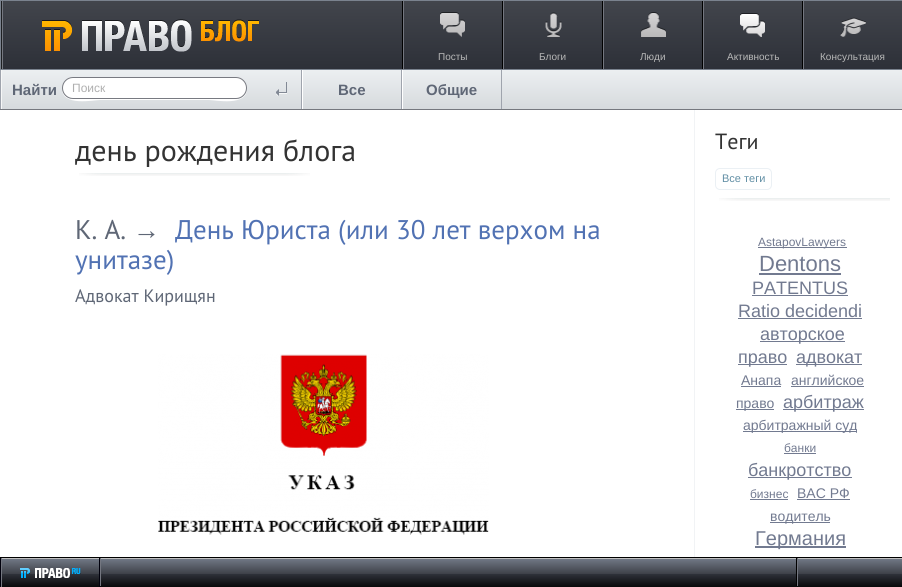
#include <cairo.h>
#include <math.h>
#include <stddef.h>

typedef struct { double x, y, w, h; unsigned color; } box_t;

static void ink(cairo_t *ctx, unsigned color) {
    cairo_set_source_rgb(ctx, (color >> 16) / 255.0, (color >> 8 & 255) / 255.0, (color & 255) / 255.0);
}

static void round_path(cairo_t *ctx, double x, double y, double w, double h, double r) {
    cairo_new_sub_path(ctx);
    cairo_arc(ctx, x + w - r, y + h - r, r, 0, M_PI / 2);
    cairo_arc(ctx, x + r, y + h - r, r, M_PI / 2, M_PI);
    cairo_arc(ctx, x + r, y + r, r, M_PI, 1.5 * M_PI);
    cairo_arc(ctx, x + w - r, y + r, r, 1.5 * M_PI, 2 * M_PI);
    cairo_close_path(ctx);
}

static void paste(cairo_t *ctx, const char *path, double x, double y, double w, double h) {
    cairo_surface_t *image = cairo_image_surface_create_from_png(path);
    cairo_save(ctx);
    cairo_set_source_surface(ctx, image, x, y);
    cairo_rectangle(ctx, x, y, w, h);
    cairo_fill(ctx);
    cairo_restore(ctx);
    cairo_surface_destroy(image);
}

int main(void) {
    cairo_surface_t *surface = cairo_image_surface_create(CAIRO_FORMAT_RGB24, 902, 587);
    cairo_t *ctx = cairo_create(surface);
    cairo_font_options_t *options = cairo_font_options_create();
    cairo_font_options_set_hint_metrics(options, CAIRO_HINT_METRICS_OFF);
    cairo_font_options_set_hint_style(options, CAIRO_HINT_STYLE_NONE);
    cairo_set_font_options(ctx, options);
    cairo_set_miter_limit(ctx, 4);
    cairo_pattern_t *gradient;
    ink(ctx, 0xFFFFFF);
    cairo_paint(ctx);
    gradient = cairo_pattern_create_linear(1, 1, 1, 69);
    cairo_pattern_add_color_stop_rgba(gradient, 0, 0.259, 0.271, 0.298, 1);
    cairo_pattern_add_color_stop_rgba(gradient, 1, 0.176, 0.188, 0.22, 1);
    cairo_set_source(ctx, gradient);
    cairo_pattern_destroy(gradient);
    cairo_rectangle(ctx, 3, 1, 899, 68);
    cairo_fill(ctx);
    cairo_rectangle(ctx, 0.5, 0.5, 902, 69);
    ink(ctx, 0x7A828E);
    cairo_set_line_width(ctx, 1);
    cairo_stroke(ctx);
    ink(ctx, 0x1E2023);
    cairo_rectangle(ctx, 1, 1, 1, 68);
    cairo_fill(ctx);
    ink(ctx, 0x747780);
    cairo_rectangle(ctx, 2, 1, 1, 68);
    cairo_fill(ctx);
    paste(ctx, "media/1.png", 42, 19, 217, 33);
    {
        static const box_t items[] = {
            {402, 1, 1, 68, 0x000000},
            {502, 1, 1, 68, 0x000000},
            {403, 1, 1, 68, 0x747780},
        };
        for (size_t i = 0; i < sizeof items / sizeof *items; i++) {
            ink(ctx, items[i].color);
            cairo_rectangle(ctx, items[i].x, items[i].y, items[i].w, items[i].h);
            cairo_fill(ctx);
        }
    }
    paste(ctx, "media/2.png", 440, 12, 25, 25);
    cairo_select_font_face(ctx, "Liberation Sans", CAIRO_FONT_SLANT_NORMAL, CAIRO_FONT_WEIGHT_NORMAL);
    cairo_set_font_size(ctx, 10);
    ink(ctx, 0xB8B8B8);
    cairo_move_to(ctx, 438, 60);
    cairo_show_text(ctx, "Посты");
    ink(ctx, 0x000000);
    cairo_rectangle(ctx, 602, 1, 1, 68);
    cairo_fill(ctx);
    ink(ctx, 0x747780);
    cairo_rectangle(ctx, 503, 1, 1, 68);
    cairo_fill(ctx);
    paste(ctx, "media/3.png", 545, 12, 17, 25);
    ink(ctx, 0xB8B8B8);
    cairo_move_to(ctx, 539, 60);
    cairo_show_text(ctx, "Блоги");
    ink(ctx, 0x000000);
    cairo_rectangle(ctx, 702, 1, 1, 68);
    cairo_fill(ctx);
    ink(ctx, 0x747780);
    cairo_rectangle(ctx, 603, 1, 1, 68);
    cairo_fill(ctx);
    paste(ctx, "media/4.png", 641, 12, 25, 25);
    ink(ctx, 0xB8B8B8);
    cairo_move_to(ctx, 640, 60);
    cairo_show_text(ctx, "Люди");
    ink(ctx, 0x000000);
    cairo_rectangle(ctx, 802, 1, 1, 68);
    cairo_fill(ctx);
    ink(ctx, 0x747780);
    cairo_rectangle(ctx, 703, 1, 1, 68);
    cairo_fill(ctx);
    paste(ctx, "media/5.png", 740, 13, 25, 24);
    ink(ctx, 0xB8B8B8);
    cairo_move_to(ctx, 727, 60);
    cairo_show_text(ctx, "Активность");
    ink(ctx, 0x747780);
    cairo_rectangle(ctx, 803, 1, 1, 68);
    cairo_fill(ctx);
    paste(ctx, "media/6.png", 840, 17, 26, 20);
    ink(ctx, 0xB8B8B8);
    cairo_move_to(ctx, 820, 60);
    cairo_show_text(ctx, "Консультация");
    gradient = cairo_pattern_create_linear(0, 70, 0, 109);
    cairo_pattern_add_color_stop_rgba(gradient, 0, 0.925, 0.937, 0.945, 1);
    cairo_pattern_add_color_stop_rgba(gradient, 1, 0.839, 0.855, 0.867, 1);
    cairo_set_source(ctx, gradient);
    cairo_pattern_destroy(gradient);
    cairo_rectangle(ctx, 2, 70, 900, 39);
    cairo_fill(ctx);
    {
        static const box_t items[] = {
            {0, 109, 902, 1, 0x75787E},
            {0, 70, 1, 39, 0x9FA4AD},
            {301, 70, 1, 39, 0x9FA4AD},
            {1, 70, 1, 39, 0xF6F7F7},
        };
        for (size_t i = 0; i < sizeof items / sizeof *items; i++) {
            ink(ctx, items[i].color);
            cairo_rectangle(ctx, items[i].x, items[i].y, items[i].w, items[i].h);
            cairo_fill(ctx);
        }
    }
    cairo_select_font_face(ctx, "Liberation Sans", CAIRO_FONT_SLANT_NORMAL, CAIRO_FONT_WEIGHT_BOLD);
    cairo_set_font_size(ctx, 15);
    ink(ctx, 0x5F6776);
    cairo_move_to(ctx, 12, 95);
    cairo_show_text(ctx, "Найти");
    ink(ctx, 0xFFFFFF);
    cairo_new_path(ctx);
    cairo_move_to(ctx, 62, 88);
    cairo_curve_to(ctx, 61, 107, 94, 100, 100, 100);
    cairo_line_to(ctx, 209, 100);
    cairo_curve_to(ctx, 215, 100, 248, 107, 247, 88);
    cairo_curve_to(ctx, 247, 94, 242, 99, 236, 99);
    cairo_line_to(ctx, 73, 99);
    cairo_curve_to(ctx, 67, 99, 62, 94, 62, 88);
    cairo_close_path(ctx);
    cairo_fill(ctx);
    round_path(ctx, 62.5, 77.5, 184, 21, 10.5);
    cairo_fill_preserve(ctx);
    ink(ctx, 0x787A81);
    cairo_stroke(ctx);
    cairo_select_font_face(ctx, "Liberation Sans", CAIRO_FONT_SLANT_NORMAL, CAIRO_FONT_WEIGHT_NORMAL);
    cairo_set_font_size(ctx, 12);
    ink(ctx, 0xAFAFAF);
    cairo_move_to(ctx, 72, 92);
    cairo_show_text(ctx, "Поиск");
    paste(ctx, "media/7.png", 276, 82, 11, 14);
    ink(ctx, 0x9FA4AD);
    cairo_rectangle(ctx, 401, 70, 1, 39);
    cairo_fill(ctx);
    ink(ctx, 0xFFFFFF);
    cairo_rectangle(ctx, 302, 70, 1, 39);
    cairo_fill(ctx);
    cairo_select_font_face(ctx, "Liberation Sans", CAIRO_FONT_SLANT_NORMAL, CAIRO_FONT_WEIGHT_BOLD);
    cairo_set_font_size(ctx, 15);
    ink(ctx, 0x5F6776);
    cairo_move_to(ctx, 338, 95);
    cairo_show_text(ctx, "Все");
    ink(ctx, 0x9FA4AD);
    cairo_rectangle(ctx, 501, 70, 1, 39);
    cairo_fill(ctx);
    ink(ctx, 0xFFFFFF);
    cairo_rectangle(ctx, 402, 70, 1, 39);
    cairo_fill(ctx);
    ink(ctx, 0x5F6776);
    cairo_move_to(ctx, 426, 95);
    cairo_show_text(ctx, "Общие");
    cairo_select_font_face(ctx, "PT Sans", CAIRO_FONT_SLANT_NORMAL, CAIRO_FONT_WEIGHT_NORMAL);
    cairo_set_font_size(ctx, 30);
    ink(ctx, 0x333333);
    cairo_move_to(ctx, 75, 161);
    cairo_show_text(ctx, "день рождения блога");
    paste(ctx, "media/8.png", 79, 173, 231, 3);
    cairo_set_font_size(ctx, 27);
    ink(ctx, 0x5F6776);
    cairo_move_to(ctx, 75, 239);
    cairo_show_text(ctx, "K. A.");
    cairo_select_font_face(ctx, "Liberation Sans", CAIRO_FONT_SLANT_NORMAL, CAIRO_FONT_WEIGHT_NORMAL);
    cairo_move_to(ctx, 133, 239);
    cairo_show_text(ctx, "→");
    cairo_select_font_face(ctx, "PT Sans", CAIRO_FONT_SLANT_NORMAL, CAIRO_FONT_WEIGHT_NORMAL);
    ink(ctx, 0x5172B3);
    cairo_move_to(ctx, 175, 239);
    cairo_show_text(ctx, "День Юриста (или 30 лет верхом на");
    cairo_move_to(ctx, 75, 269);
    cairo_show_text(ctx, "унитазе)");
    cairo_set_font_size(ctx, 18);
    ink(ctx, 0x5F6776);
    cairo_move_to(ctx, 75, 302);
    cairo_show_text(ctx, "Адвокат Кирищян");
    paste(ctx, "media/9.png", 158, 354, 331, 181);
    ink(ctx, 0xF1F3F5);
    cairo_rectangle(ctx, 694, 110, 1, 447);
    cairo_fill(ctx);
    cairo_set_font_size(ctx, 22);
    ink(ctx, 0x333333);
    cairo_move_to(ctx, 715, 149);
    cairo_show_text(ctx, "Теги");
    round_path(ctx, 715.5, 168.5, 56, 21, 4.5);
    ink(ctx, 0xEBF0F4);
    cairo_stroke(ctx);
    cairo_select_font_face(ctx, "Liberation Sans", CAIRO_FONT_SLANT_NORMAL, CAIRO_FONT_WEIGHT_NORMAL);
    cairo_set_font_size(ctx, 11);
    ink(ctx, 0x628FA5);
    cairo_move_to(ctx, 722, 182);
    cairo_show_text(ctx, "Все теги");
    paste(ctx, "media/10.png", 719, 198, 171, 3);
    ink(ctx, 0x727A90);
    cairo_rectangle(ctx, 758, 247, 89, 1);
    cairo_fill(ctx);
    cairo_set_font_size(ctx, 12);
    cairo_move_to(ctx, 758, 246);
    cairo_show_text(ctx, "AstapovLawyers");
    cairo_set_font_size(ctx, 22);
    cairo_move_to(ctx, 759, 271);
    cairo_show_text(ctx, "Dentons");
    cairo_rectangle(ctx, 759, 273, 82, 2);
    cairo_fill(ctx);
    cairo_set_font_size(ctx, 18);
    cairo_move_to(ctx, 752, 294);
    cairo_show_text(ctx, "PATENTUS");
    cairo_rectangle(ctx, 752, 295, 96, 1);
    cairo_fill(ctx);
    cairo_move_to(ctx, 738, 317);
    cairo_show_text(ctx, "Ratio decidendi");
    cairo_rectangle(ctx, 738, 318, 124, 1);
    cairo_fill(ctx);
    cairo_rectangle(ctx, 760, 341, 85, 1);
    cairo_fill(ctx);
    cairo_move_to(ctx, 760, 340);
    cairo_show_text(ctx, "авторское");
    cairo_rectangle(ctx, 738, 364, 49, 1);
    cairo_fill(ctx);
    cairo_move_to(ctx, 738, 363);
    cairo_show_text(ctx, "право");
    cairo_rectangle(ctx, 796, 364, 66, 1);
    cairo_fill(ctx);
    cairo_move_to(ctx, 796, 363);
    cairo_show_text(ctx, "адвокат");
    cairo_set_font_size(ctx, 14);
    cairo_move_to(ctx, 741, 385);
    cairo_show_text(ctx, "Анапа");
    cairo_rectangle(ctx, 741, 386, 40, 1);
    cairo_fill(ctx);
    cairo_move_to(ctx, 791, 385);
    cairo_show_text(ctx, "английское");
    cairo_rectangle(ctx, 791, 386, 73, 1);
    cairo_fill(ctx);
    cairo_rectangle(ctx, 736, 409, 38, 1);
    cairo_fill(ctx);
    cairo_move_to(ctx, 736, 408);
    cairo_show_text(ctx, "право");
    cairo_rectangle(ctx, 783, 409, 81, 1);
    cairo_fill(ctx);
    cairo_set_font_size(ctx, 18);
    cairo_move_to(ctx, 783, 408);
    cairo_show_text(ctx, "арбитраж");
    cairo_rectangle(ctx, 743, 431, 114, 1);
    cairo_fill(ctx);
    cairo_set_font_size(ctx, 14);
    cairo_move_to(ctx, 743, 430);
    cairo_show_text(ctx, "арбитражный суд");
    cairo_set_font_size(ctx, 12);
    cairo_move_to(ctx, 784, 452);
    cairo_show_text(ctx, "банки");
    cairo_rectangle(ctx, 784, 453, 32, 1);
    cairo_fill(ctx);
    cairo_rectangle(ctx, 748, 477, 104, 1);
    cairo_fill(ctx);
    cairo_set_font_size(ctx, 18);
    cairo_move_to(ctx, 748, 476);
    cairo_show_text(ctx, "банкротство");
    cairo_set_font_size(ctx, 12);
    cairo_move_to(ctx, 750, 498);
    cairo_show_text(ctx, "бизнес");
    cairo_rectangle(ctx, 750, 499, 38, 1);
    cairo_fill(ctx);
    cairo_set_font_size(ctx, 14);
    cairo_move_to(ctx, 797, 498);
    cairo_show_text(ctx, "ВАС РФ");
    cairo_rectangle(ctx, 797, 499, 53, 1);
    cairo_fill(ctx);
    cairo_rectangle(ctx, 770, 522, 60, 1);
    cairo_fill(ctx);
    cairo_move_to(ctx, 770, 521);
    cairo_show_text(ctx, "водитель");
    cairo_rectangle(ctx, 755, 546, 91, 2);
    cairo_fill(ctx);
    cairo_set_font_size(ctx, 20);
    cairo_move_to(ctx, 755, 545);
    cairo_show_text(ctx, "Германия");
    paste(ctx, "media/11.png", 0, 558, 902, 29);
    {
        static const box_t items[] = {
            {0, 557, 902, 1, 0x000000},
            {0, 558, 1, 28, 0x00000C},
            {99, 558, 1, 29, 0x00000C},
            {1, 558, 1, 29, 0x747780},
        };
        for (size_t i = 0; i < sizeof items / sizeof *items; i++) {
            ink(ctx, items[i].color);
            cairo_rectangle(ctx, items[i].x, items[i].y, items[i].w, items[i].h);
            cairo_fill(ctx);
        }
    }
    paste(ctx, "media/12.png", 20, 568, 61, 10);
    {
        static const box_t items[] = {
            {100, 558, 1, 28, 0x747780},
            {796, 558, 1, 28, 0x000000},
            {797, 558, 1, 28, 0x747780},
        };
        for (size_t i = 0; i < sizeof items / sizeof *items; i++) {
            ink(ctx, items[i].color);
            cairo_rectangle(ctx, items[i].x, items[i].y, items[i].w, items[i].h);
            cairo_fill(ctx);
        }
    }
    cairo_surface_write_to_png(surface, "image.png");
    cairo_font_options_destroy(options);
    cairo_destroy(ctx);
    cairo_surface_destroy(surface);
    return 0;
}
